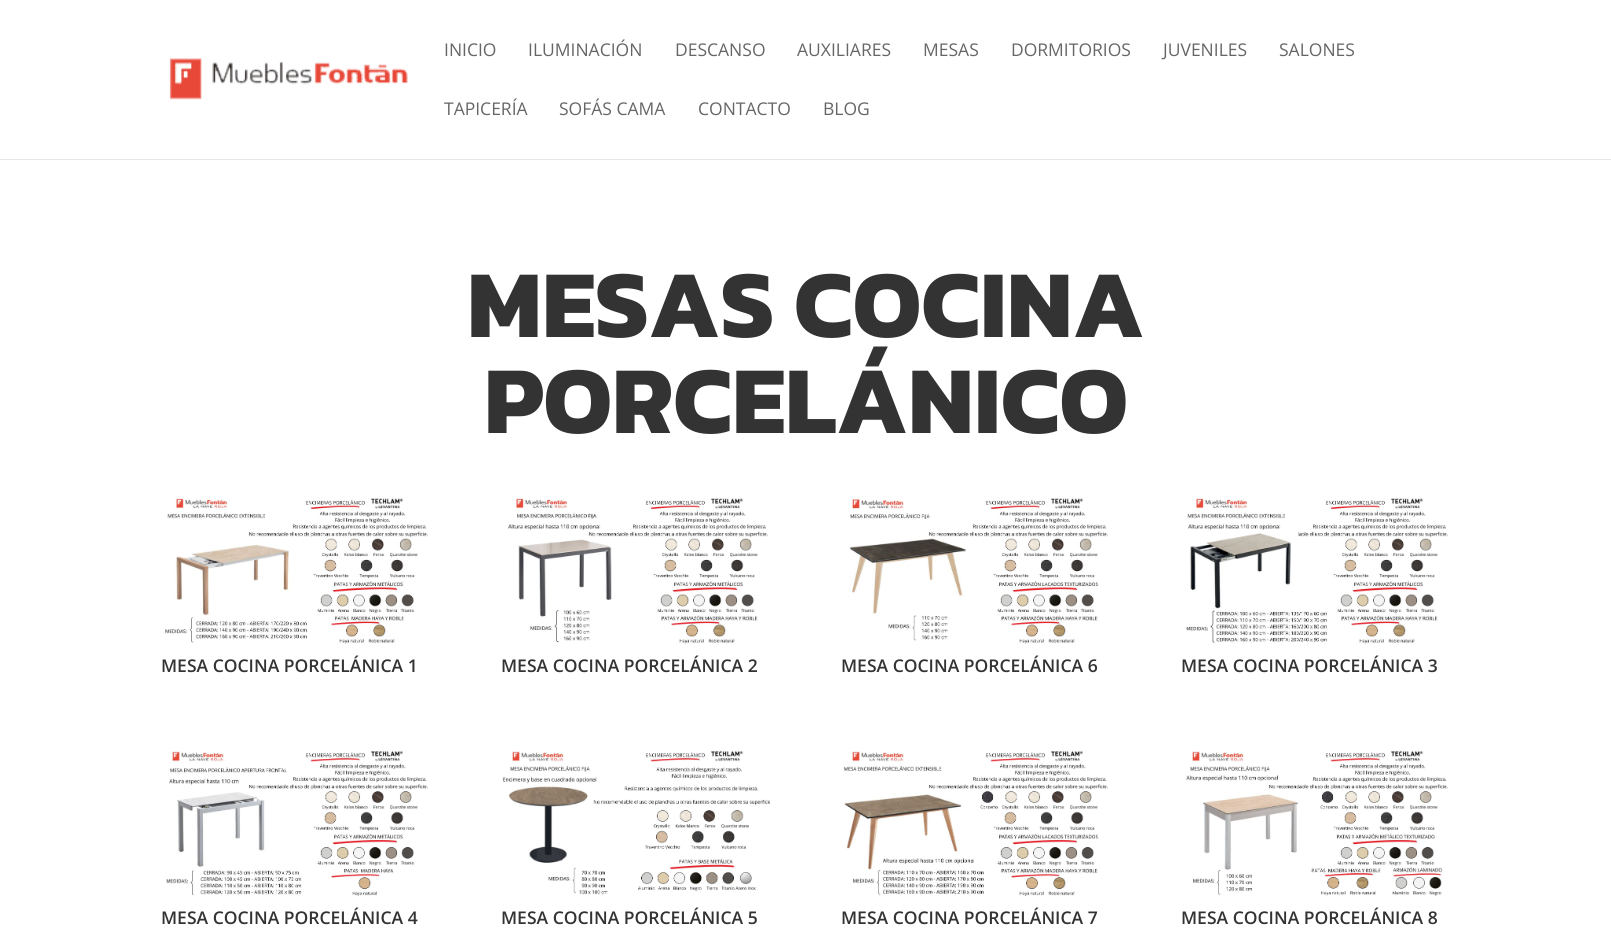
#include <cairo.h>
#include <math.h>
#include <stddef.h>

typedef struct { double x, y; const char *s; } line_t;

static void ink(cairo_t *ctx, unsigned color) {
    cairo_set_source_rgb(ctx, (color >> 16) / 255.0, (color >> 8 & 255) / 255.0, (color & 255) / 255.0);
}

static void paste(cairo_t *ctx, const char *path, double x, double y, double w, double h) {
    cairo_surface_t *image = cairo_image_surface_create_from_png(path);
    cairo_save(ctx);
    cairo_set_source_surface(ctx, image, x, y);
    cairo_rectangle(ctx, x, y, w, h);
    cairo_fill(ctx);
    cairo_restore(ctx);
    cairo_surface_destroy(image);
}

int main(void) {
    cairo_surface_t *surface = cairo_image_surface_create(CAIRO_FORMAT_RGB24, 1611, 929);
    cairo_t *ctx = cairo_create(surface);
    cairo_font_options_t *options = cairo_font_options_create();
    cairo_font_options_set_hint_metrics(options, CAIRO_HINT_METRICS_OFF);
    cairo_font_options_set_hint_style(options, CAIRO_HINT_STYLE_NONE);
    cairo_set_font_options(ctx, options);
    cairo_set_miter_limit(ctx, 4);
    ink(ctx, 0xFFFFFF);
    cairo_paint(ctx);
    ink(ctx, 0xE6E6E6);
    cairo_rectangle(ctx, 0, 159, 1611, 1);
    cairo_fill(ctx);
    paste(ctx, "media/1.png", 169, 58, 239, 42);
    cairo_select_font_face(ctx, "Open Sans", CAIRO_FONT_SLANT_NORMAL, CAIRO_FONT_WEIGHT_NORMAL);
    cairo_set_font_size(ctx, 17.5);
    ink(ctx, 0x666666);
    {
        static const line_t items[] = {
            {444, 56, "INICIO"},
            {528, 56, "ILUMINACIÓN"},
            {675, 56, "DESCANSO"},
            {797, 56, "AUXILIARES"},
            {923, 56, "MESAS"},
            {1011, 56, "DORMITORIOS"},
            {1163, 56, "JUVENILES"},
            {1279, 56, "SALONES"},
            {444, 115, "TAPICERÍA"},
            {559, 115, "SOFÁS CAMA"},
            {698, 115, "CONTACTO"},
            {823, 115, "BLOG"},
        };
        for (size_t i = 0; i < sizeof items / sizeof *items; i++) {
            cairo_move_to(ctx, items[i].x, items[i].y);
            cairo_show_text(ctx, items[i].s);
        }
    }
    cairo_select_font_face(ctx, "Kanit", CAIRO_FONT_SLANT_NORMAL, CAIRO_FONT_WEIGHT_BOLD);
    cairo_set_font_size(ctx, 96.75);
    ink(ctx, 0x333333);
    cairo_move_to(ctx, 467, 337);
    cairo_show_text(ctx, "MESAS COCINA");
    cairo_move_to(ctx, 484, 433);
    cairo_show_text(ctx, "PORCELÁNICO");
    paste(ctx, "media/2.png", 165, 497, 263, 147);
    cairo_select_font_face(ctx, "Open Sans SemiBold", CAIRO_FONT_SLANT_NORMAL, CAIRO_FONT_WEIGHT_NORMAL);
    cairo_set_font_size(ctx, 17.5);
    cairo_move_to(ctx, 161, 672);
    cairo_show_text(ctx, "MESA COCINA PORCELÁNICA 1");
    paste(ctx, "media/3.png", 508, 497, 260, 147);
    cairo_move_to(ctx, 501, 672);
    cairo_show_text(ctx, "MESA COCINA PORCELÁNICA 2");
    paste(ctx, "media/4.png", 850, 497, 258, 147);
    cairo_move_to(ctx, 841, 672);
    cairo_show_text(ctx, "MESA COCINA PORCELÁNICA 6");
    paste(ctx, "media/5.png", 1186, 497, 262, 147);
    cairo_move_to(ctx, 1181, 672);
    cairo_show_text(ctx, "MESA COCINA PORCELÁNICA 3");
    paste(ctx, "media/6.png", 166, 750, 262, 146);
    cairo_move_to(ctx, 161, 924);
    cairo_show_text(ctx, "MESA COCINA PORCELÁNICA 4");
    paste(ctx, "media/7.png", 502, 750, 268, 145);
    cairo_move_to(ctx, 501, 924);
    cairo_show_text(ctx, "MESA COCINA PORCELÁNICA 5");
    paste(ctx, "media/8.png", 843, 750, 265, 146);
    cairo_move_to(ctx, 841, 924);
    cairo_show_text(ctx, "MESA COCINA PORCELÁNICA 7");
    paste(ctx, "media/9.png", 1186, 750, 262, 146);
    cairo_move_to(ctx, 1181, 924);
    cairo_show_text(ctx, "MESA COCINA PORCELÁNICA 8");
    cairo_surface_write_to_png(surface, "image.png");
    cairo_font_options_destroy(options);
    cairo_destroy(ctx);
    cairo_surface_destroy(surface);
    return 0;
}
